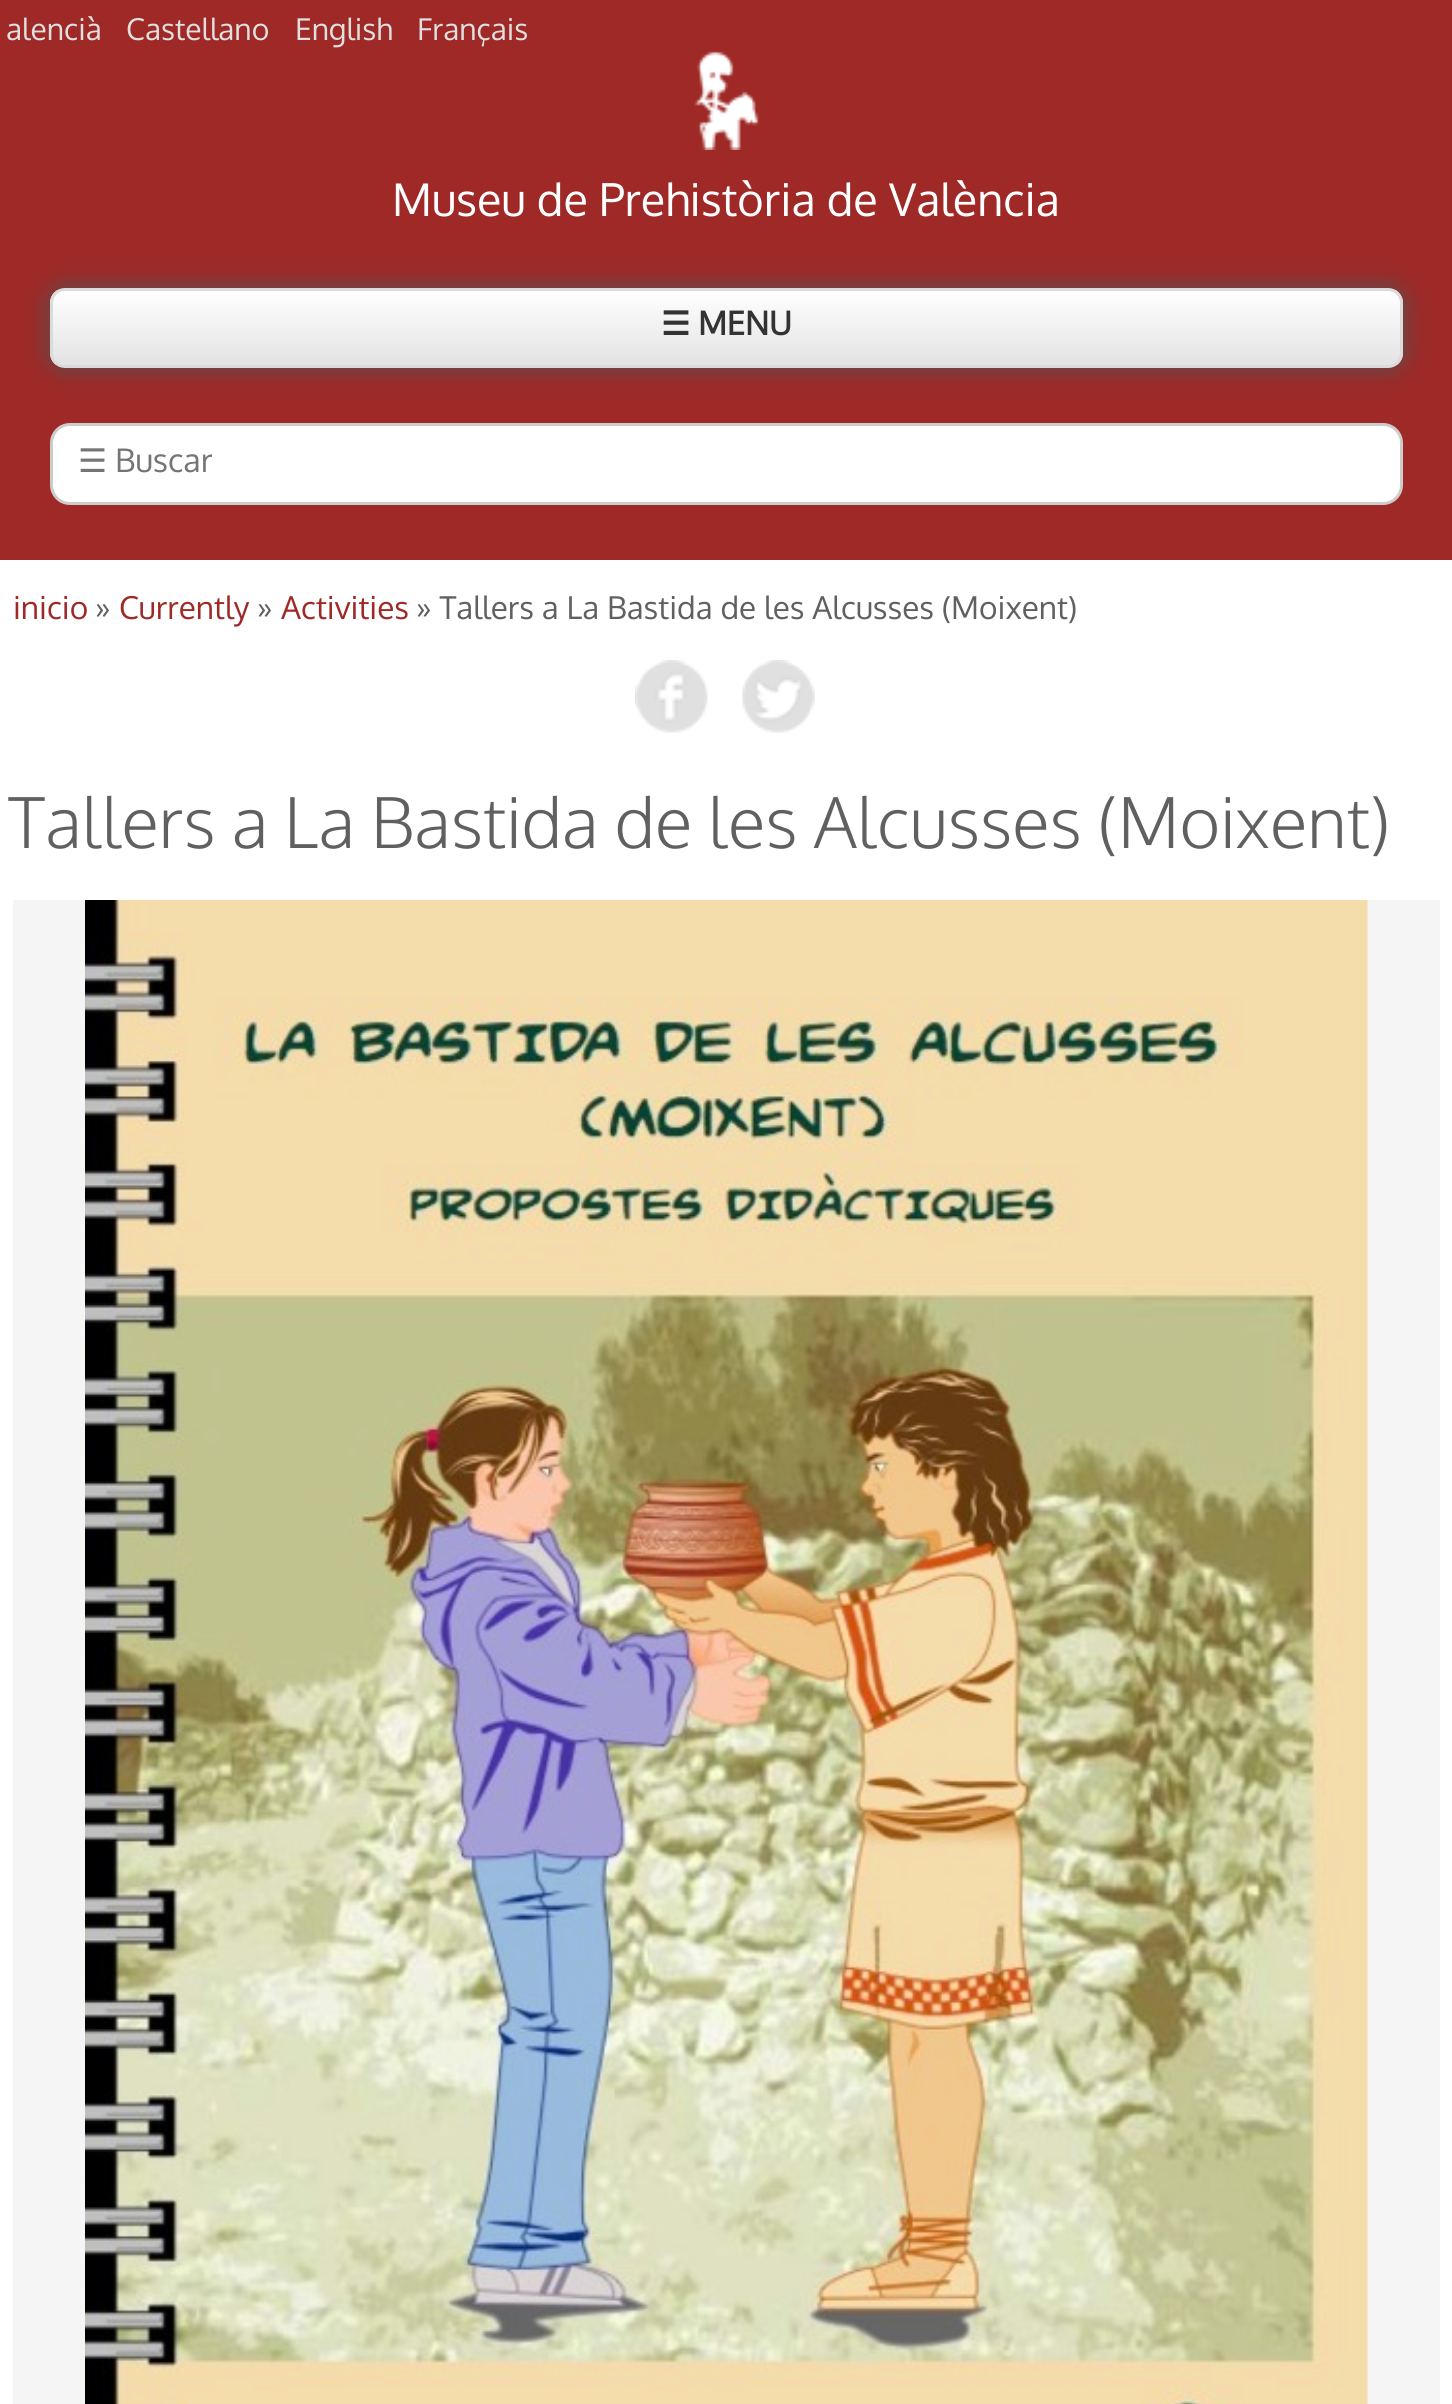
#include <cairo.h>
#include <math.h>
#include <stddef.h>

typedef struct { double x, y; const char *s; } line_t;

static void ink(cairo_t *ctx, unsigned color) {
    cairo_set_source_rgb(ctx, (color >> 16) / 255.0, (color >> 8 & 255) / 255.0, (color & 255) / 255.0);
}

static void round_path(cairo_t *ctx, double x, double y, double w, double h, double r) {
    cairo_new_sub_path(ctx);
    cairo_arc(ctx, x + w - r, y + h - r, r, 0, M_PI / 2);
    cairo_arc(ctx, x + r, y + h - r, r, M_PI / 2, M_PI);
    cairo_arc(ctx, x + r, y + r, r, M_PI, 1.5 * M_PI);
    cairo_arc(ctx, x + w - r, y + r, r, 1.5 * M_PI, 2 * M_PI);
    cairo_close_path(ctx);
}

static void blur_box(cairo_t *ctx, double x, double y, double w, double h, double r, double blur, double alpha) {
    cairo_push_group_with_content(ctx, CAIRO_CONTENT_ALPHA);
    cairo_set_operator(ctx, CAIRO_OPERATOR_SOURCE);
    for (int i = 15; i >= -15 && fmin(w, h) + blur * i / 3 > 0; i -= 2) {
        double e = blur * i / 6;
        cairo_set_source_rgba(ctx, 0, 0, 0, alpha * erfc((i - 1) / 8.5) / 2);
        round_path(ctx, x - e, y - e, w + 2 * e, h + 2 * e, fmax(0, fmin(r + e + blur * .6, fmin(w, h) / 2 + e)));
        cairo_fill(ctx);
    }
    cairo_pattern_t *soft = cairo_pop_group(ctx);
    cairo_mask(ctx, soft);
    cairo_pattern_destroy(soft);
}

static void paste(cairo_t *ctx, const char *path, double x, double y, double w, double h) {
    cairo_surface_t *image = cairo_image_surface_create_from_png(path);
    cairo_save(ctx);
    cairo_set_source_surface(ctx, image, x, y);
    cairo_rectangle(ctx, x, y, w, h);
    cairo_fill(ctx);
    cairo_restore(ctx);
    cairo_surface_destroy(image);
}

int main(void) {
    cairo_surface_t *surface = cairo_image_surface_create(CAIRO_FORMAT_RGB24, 1452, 2404);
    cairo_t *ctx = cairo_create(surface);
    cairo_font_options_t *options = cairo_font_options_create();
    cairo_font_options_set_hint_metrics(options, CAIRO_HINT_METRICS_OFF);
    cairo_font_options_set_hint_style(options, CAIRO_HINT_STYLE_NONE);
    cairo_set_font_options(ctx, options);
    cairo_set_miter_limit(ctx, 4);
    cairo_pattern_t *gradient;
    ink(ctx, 0xFFFFFF);
    cairo_paint(ctx);
    ink(ctx, 0x9E2926);
    cairo_rectangle(ctx, 0, 0, 1452, 560);
    cairo_fill(ctx);
    cairo_select_font_face(ctx, "Oxygen", CAIRO_FONT_SLANT_NORMAL, CAIRO_FONT_WEIGHT_NORMAL);
    cairo_set_font_size(ctx, 30);
    ink(ctx, 0xE0E0E0);
    {
        static const line_t items[] = {
            {6, 40, "alencià"},
            {126, 40, "Castellano"},
            {295, 40, "English"},
            {417, 40, "Français"},
        };
        for (size_t i = 0; i < sizeof items / sizeof *items; i++) {
            cairo_move_to(ctx, items[i].x, items[i].y);
            cairo_show_text(ctx, items[i].s);
        }
    }
    paste(ctx, "media/1.png", 694, 51, 65, 99);
    cairo_set_font_size(ctx, 45);
    ink(ctx, 0xFFFFFF);
    cairo_move_to(ctx, 392, 216);
    cairo_show_text(ctx, "Museu de Prehistòria de València");
    ink(ctx, 0x525252);
    blur_box(ctx, 50, 288, 1353, 80, 15, 12.5, 1);
    cairo_save(ctx);
    round_path(ctx, 50, 288, 1353, 80, 15);
    cairo_clip(ctx);
    gradient = cairo_pattern_create_linear(726, 290, 726, 365);
    cairo_pattern_add_color_stop_rgba(gradient, 0, 1, 1, 1, 1);
    cairo_pattern_add_color_stop_rgba(gradient, 1, 0.89, 0.89, 0.89, 1);
    cairo_set_source(ctx, gradient);
    cairo_pattern_destroy(gradient);
    cairo_rectangle(ctx, 50, 290, 1353, 75);
    cairo_fill(ctx);
    cairo_restore(ctx);
    round_path(ctx, 51.5, 289.5, 1350, 77, 13.5);
    ink(ctx, 0xDBDBDB);
    cairo_set_line_width(ctx, 3);
    cairo_stroke(ctx);
    cairo_select_font_face(ctx, "DejaVu Sans", CAIRO_FONT_SLANT_NORMAL, CAIRO_FONT_WEIGHT_BOLD);
    cairo_set_font_size(ctx, 32.5);
    ink(ctx, 0x333333);
    cairo_move_to(ctx, 661, 335);
    cairo_show_text(ctx, "☰");
    cairo_select_font_face(ctx, "Oxygen", CAIRO_FONT_SLANT_NORMAL, CAIRO_FONT_WEIGHT_BOLD);
    cairo_move_to(ctx, 698, 335);
    cairo_show_text(ctx, "MENU");
    ink(ctx, 0xFFFFFF);
    round_path(ctx, 51.5, 424.5, 1350, 79, 18.5);
    cairo_fill_preserve(ctx);
    ink(ctx, 0xCCCCCC);
    cairo_stroke(ctx);
    cairo_select_font_face(ctx, "DejaVu Sans", CAIRO_FONT_SLANT_NORMAL, CAIRO_FONT_WEIGHT_NORMAL);
    ink(ctx, 0x757575);
    cairo_move_to(ctx, 78, 472);
    cairo_show_text(ctx, "☰");
    cairo_select_font_face(ctx, "Oxygen", CAIRO_FONT_SLANT_NORMAL, CAIRO_FONT_WEIGHT_NORMAL);
    cairo_move_to(ctx, 115, 472);
    cairo_show_text(ctx, "Buscar");
    cairo_set_font_size(ctx, 31.5);
    ink(ctx, 0x9E2926);
    cairo_move_to(ctx, 13, 619);
    cairo_show_text(ctx, "inicio");
    ink(ctx, 0x606060);
    cairo_move_to(ctx, 95, 619);
    cairo_show_text(ctx, "»");
    ink(ctx, 0x9E2926);
    cairo_move_to(ctx, 119, 619);
    cairo_show_text(ctx, "Currently");
    ink(ctx, 0x606060);
    cairo_move_to(ctx, 257, 619);
    cairo_show_text(ctx, "»");
    ink(ctx, 0x9E2926);
    cairo_move_to(ctx, 281, 619);
    cairo_show_text(ctx, "Activities");
    ink(ctx, 0x606060);
    cairo_move_to(ctx, 416, 619);
    cairo_show_text(ctx, "» Tallers a La Bastida de les Alcusses (Moixent)");
    paste(ctx, "media/2.png", 635, 660, 73, 73);
    paste(ctx, "media/3.png", 742, 660, 73, 73);
    cairo_select_font_face(ctx, "Oxygen Light", CAIRO_FONT_SLANT_NORMAL, CAIRO_FONT_WEIGHT_NORMAL);
    cairo_set_font_size(ctx, 70);
    cairo_move_to(ctx, 8, 848);
    cairo_show_text(ctx, "Tallers a La Bastida de les Alcusses (Moixent)");
    ink(ctx, 0xF5F5F5);
    cairo_rectangle(ctx, 13, 900, 1427, 1504);
    cairo_fill(ctx);
    paste(ctx, "media/4.png", 85, 900, 1283, 1504);
    cairo_surface_write_to_png(surface, "image.png");
    cairo_font_options_destroy(options);
    cairo_destroy(ctx);
    cairo_surface_destroy(surface);
    return 0;
}
